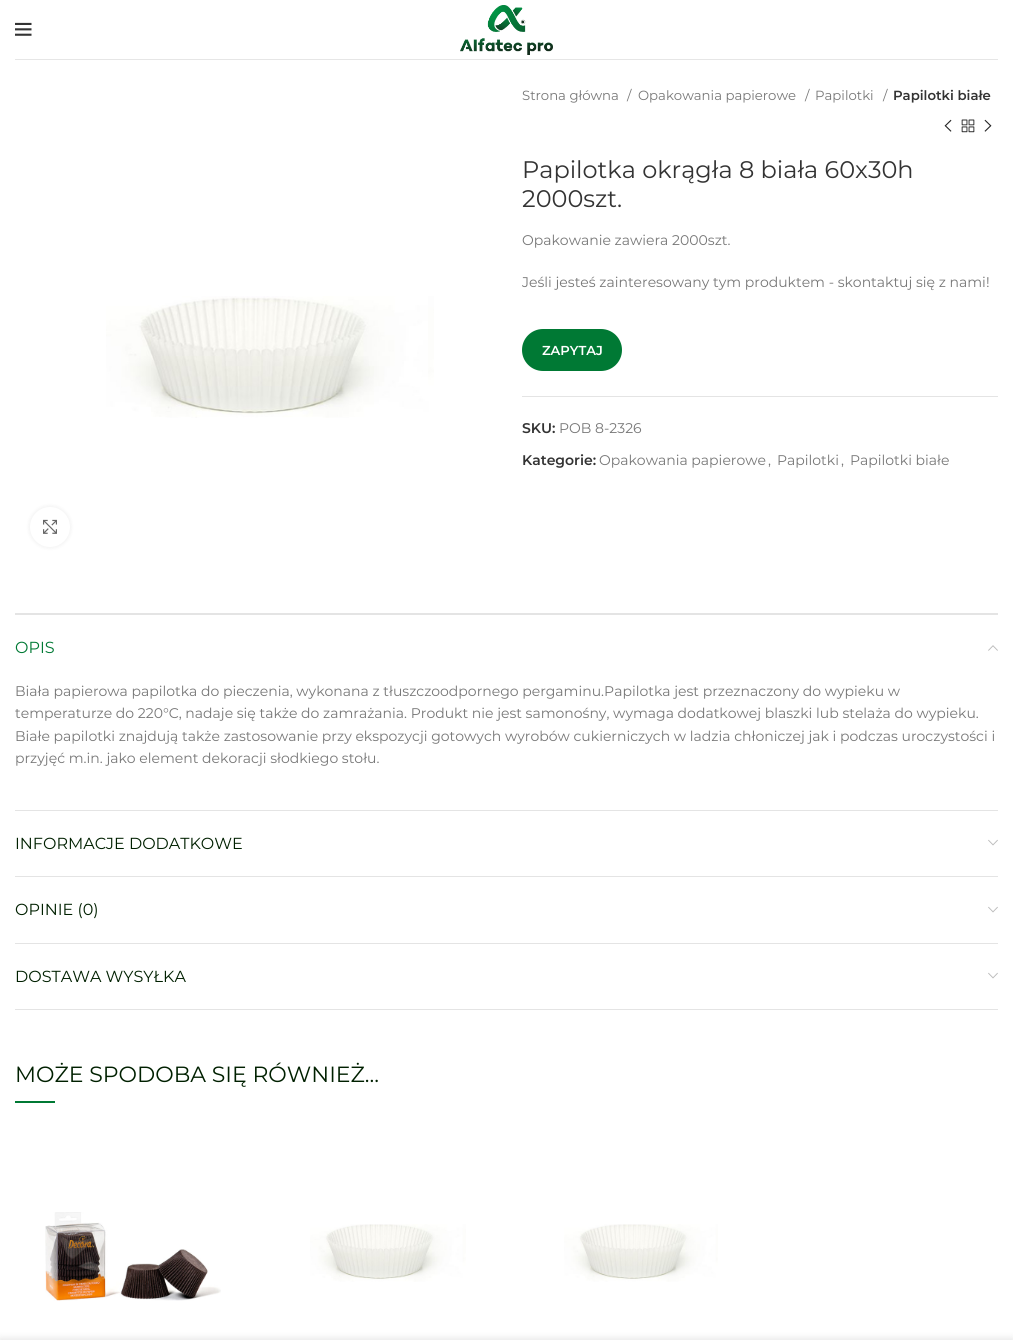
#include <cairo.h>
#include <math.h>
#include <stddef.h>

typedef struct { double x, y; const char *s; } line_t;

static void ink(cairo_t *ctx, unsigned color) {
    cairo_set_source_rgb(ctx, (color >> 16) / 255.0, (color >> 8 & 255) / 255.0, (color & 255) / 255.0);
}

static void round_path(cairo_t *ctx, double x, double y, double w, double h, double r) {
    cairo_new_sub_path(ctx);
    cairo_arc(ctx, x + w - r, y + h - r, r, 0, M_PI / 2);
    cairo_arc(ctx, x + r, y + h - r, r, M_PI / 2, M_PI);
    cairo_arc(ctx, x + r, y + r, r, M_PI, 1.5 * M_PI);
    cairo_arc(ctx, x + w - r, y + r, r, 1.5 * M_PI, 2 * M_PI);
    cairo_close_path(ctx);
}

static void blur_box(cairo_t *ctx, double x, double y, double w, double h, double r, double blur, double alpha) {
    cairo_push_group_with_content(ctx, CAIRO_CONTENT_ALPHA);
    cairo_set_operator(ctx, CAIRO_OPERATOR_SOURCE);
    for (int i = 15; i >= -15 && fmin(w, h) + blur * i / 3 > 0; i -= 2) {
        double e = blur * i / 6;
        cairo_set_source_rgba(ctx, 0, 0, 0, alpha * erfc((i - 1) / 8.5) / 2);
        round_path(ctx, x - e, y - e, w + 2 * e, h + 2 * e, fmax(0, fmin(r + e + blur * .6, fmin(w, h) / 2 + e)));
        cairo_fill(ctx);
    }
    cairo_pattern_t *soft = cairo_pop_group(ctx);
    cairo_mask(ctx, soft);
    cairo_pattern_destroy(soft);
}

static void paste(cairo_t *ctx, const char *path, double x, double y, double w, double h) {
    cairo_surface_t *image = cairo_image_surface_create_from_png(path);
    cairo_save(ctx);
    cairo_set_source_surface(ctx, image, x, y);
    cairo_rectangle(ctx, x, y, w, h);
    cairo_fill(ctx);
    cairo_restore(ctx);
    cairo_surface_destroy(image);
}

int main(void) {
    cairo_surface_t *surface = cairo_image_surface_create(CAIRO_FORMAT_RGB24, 1013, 1340);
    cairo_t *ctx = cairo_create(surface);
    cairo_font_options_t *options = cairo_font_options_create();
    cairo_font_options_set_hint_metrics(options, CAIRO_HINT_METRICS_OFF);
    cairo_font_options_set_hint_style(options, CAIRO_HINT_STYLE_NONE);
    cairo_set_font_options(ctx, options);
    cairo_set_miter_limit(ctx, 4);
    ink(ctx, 0xFFFFFF);
    cairo_paint(ctx);
    ink(ctx, 0xE6E6E6);
    cairo_rectangle(ctx, 15, 59, 983, 1);
    cairo_fill(ctx);
    paste(ctx, "media/1.png", 15, 22, 17, 14);
    paste(ctx, "media/2.png", 460, 5, 93, 50);
    paste(ctx, "media/3.png", 106, 296, 328, 122);
    ink(ctx, 0x000000);
    blur_box(ctx, 30, 507, 40, 40, 20, 2.5, 0.08);
    ink(ctx, 0xFFFFFF);
    cairo_arc(ctx, 50, 527, 20, 0, 2 * M_PI);
    cairo_fill(ctx);
    paste(ctx, "media/4.png", 43, 519, 14, 15);
    cairo_select_font_face(ctx, "Montserrat", CAIRO_FONT_SLANT_NORMAL, CAIRO_FONT_WEIGHT_NORMAL);
    cairo_set_font_size(ctx, 13.25);
    ink(ctx, 0x777777);
    {
        static const line_t items[] = {
            {522, 100, "Strona główna"},
            {627, 100, "/"},
            {638, 100, "Opakowania papierowe"},
            {805, 100, "/"},
            {815, 100, "Papilotki"},
            {883, 100, "/"},
        };
        for (size_t i = 0; i < sizeof items / sizeof *items; i++) {
            cairo_move_to(ctx, items[i].x, items[i].y);
            cairo_show_text(ctx, items[i].s);
        }
    }
    cairo_select_font_face(ctx, "Montserrat SemiBold", CAIRO_FONT_SLANT_NORMAL, CAIRO_FONT_WEIGHT_NORMAL);
    ink(ctx, 0x333333);
    cairo_move_to(ctx, 893, 100);
    cairo_show_text(ctx, "Papilotki białe");
    paste(ctx, "media/5.png", 944, 119, 8, 13);
    paste(ctx, "media/6.png", 961, 119, 14, 14);
    paste(ctx, "media/7.png", 984, 119, 8, 13);
    cairo_select_font_face(ctx, "Montserrat", CAIRO_FONT_SLANT_NORMAL, CAIRO_FONT_WEIGHT_NORMAL);
    cairo_set_font_size(ctx, 24);
    cairo_move_to(ctx, 522, 178);
    cairo_show_text(ctx, "Papilotka okrągła 8 biała 60x30h");
    cairo_move_to(ctx, 522, 207);
    cairo_show_text(ctx, "2000szt.");
    cairo_set_font_size(ctx, 14);
    ink(ctx, 0x777777);
    cairo_move_to(ctx, 522, 245);
    cairo_show_text(ctx, "Opakowanie zawiera 2000szt.");
    cairo_move_to(ctx, 522, 287);
    cairo_show_text(ctx, "Jeśli jesteś zainteresowany tym produktem - skontaktuj się z nami!");
    ink(ctx, 0x007934);
    round_path(ctx, 522, 329, 100, 42, 21);
    cairo_fill(ctx);
    cairo_select_font_face(ctx, "Montserrat SemiBold", CAIRO_FONT_SLANT_NORMAL, CAIRO_FONT_WEIGHT_NORMAL);
    cairo_set_font_size(ctx, 13);
    ink(ctx, 0xFFFFFF);
    cairo_move_to(ctx, 542, 355);
    cairo_show_text(ctx, "ZAPYTAJ");
    ink(ctx, 0xE4E4E4);
    cairo_rectangle(ctx, 522, 396, 476, 1);
    cairo_fill(ctx);
    cairo_set_font_size(ctx, 14);
    ink(ctx, 0x333333);
    cairo_move_to(ctx, 522, 433);
    cairo_show_text(ctx, "SKU:");
    cairo_select_font_face(ctx, "Montserrat", CAIRO_FONT_SLANT_NORMAL, CAIRO_FONT_WEIGHT_NORMAL);
    ink(ctx, 0x777777);
    cairo_move_to(ctx, 559, 433);
    cairo_show_text(ctx, "POB 8-2326");
    cairo_select_font_face(ctx, "Montserrat SemiBold", CAIRO_FONT_SLANT_NORMAL, CAIRO_FONT_WEIGHT_NORMAL);
    ink(ctx, 0x333333);
    cairo_move_to(ctx, 522, 465);
    cairo_show_text(ctx, "Kategorie:");
    cairo_select_font_face(ctx, "Montserrat", CAIRO_FONT_SLANT_NORMAL, CAIRO_FONT_WEIGHT_NORMAL);
    ink(ctx, 0x777777);
    {
        static const line_t items[] = {
            {599, 465, "Opakowania papierowe"},
            {768, 465, ","},
            {777, 465, "Papilotki"},
            {841, 465, ","},
            {850, 465, "Papilotki białe"},
        };
        for (size_t i = 0; i < sizeof items / sizeof *items; i++) {
            cairo_move_to(ctx, items[i].x, items[i].y);
            cairo_show_text(ctx, items[i].s);
        }
    }
    ink(ctx, 0xE4E4E4);
    cairo_rectangle(ctx, 15, 613, 983, 2);
    cairo_fill(ctx);
    cairo_rectangle(ctx, 15, 810, 983, 1);
    cairo_fill(ctx);
    cairo_set_font_size(ctx, 16);
    ink(ctx, 0x007934);
    cairo_move_to(ctx, 15, 653);
    cairo_show_text(ctx, "OPIS");
    paste(ctx, "media/8.png", 988, 645, 10, 6);
    cairo_set_font_size(ctx, 14);
    ink(ctx, 0x777777);
    {
        static const line_t items[] = {
            {15, 696, "Biała papierowa papilotka do pieczenia, wykonana z tłuszczoodpornego pergaminu.Papilotka jest przeznaczony do wypieku w"},
            {15, 718, "temperaturze do 220°C, nadaje się także do zamrażania. Produkt nie jest samonośny, wymaga dodatkowej blaszki lub stelaża do wypieku."},
            {15, 741, "Białe papilotki znajdują także zastosowanie przy ekspozycji gotowych wyrobów cukierniczych w ladzia chłoniczej jak i podczas uroczystości i"},
            {15, 763, "przyjęć m.in. jako element dekoracji słodkiego stołu."},
        };
        for (size_t i = 0; i < sizeof items / sizeof *items; i++) {
            cairo_move_to(ctx, items[i].x, items[i].y);
            cairo_show_text(ctx, items[i].s);
        }
    }
    ink(ctx, 0xE4E4E4);
    cairo_rectangle(ctx, 15, 876, 983, 1);
    cairo_fill(ctx);
    cairo_set_font_size(ctx, 16);
    ink(ctx, 0x002000);
    cairo_move_to(ctx, 15, 849);
    cairo_show_text(ctx, "INFORMACJE DODATKOWE");
    paste(ctx, "media/9.png", 988, 839, 10, 7);
    ink(ctx, 0xE4E4E4);
    cairo_rectangle(ctx, 15, 943, 983, 1);
    cairo_fill(ctx);
    ink(ctx, 0x002000);
    cairo_move_to(ctx, 15, 915);
    cairo_show_text(ctx, "OPINIE (0)");
    paste(ctx, "media/9.png", 988, 906, 10, 7);
    ink(ctx, 0xE4E4E4);
    cairo_rectangle(ctx, 15, 1009, 983, 1);
    cairo_fill(ctx);
    ink(ctx, 0x002000);
    cairo_move_to(ctx, 15, 982);
    cairo_show_text(ctx, "DOSTAWA WYSYŁKA");
    paste(ctx, "media/9.png", 988, 972, 10, 7);
    cairo_set_font_size(ctx, 22);
    cairo_move_to(ctx, 15, 1082);
    cairo_show_text(ctx, "MOŻE SPODOBA SIĘ RÓWNIEŻ…");
    ink(ctx, 0x007934);
    cairo_rectangle(ctx, 15, 1101, 40, 2);
    cairo_fill(ctx);
    paste(ctx, "media/10.png", 45, 1212, 176, 89);
    paste(ctx, "media/11.png", 310, 1224, 156, 58);
    paste(ctx, "media/12.png", 564, 1224, 154, 58);
    ink(ctx, 0x000000);
    blur_box(ctx, 0, 1340, 1013, 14, 0, 4.5, 0.14);
    cairo_surface_write_to_png(surface, "image.png");
    cairo_font_options_destroy(options);
    cairo_destroy(ctx);
    cairo_surface_destroy(surface);
    return 0;
}
